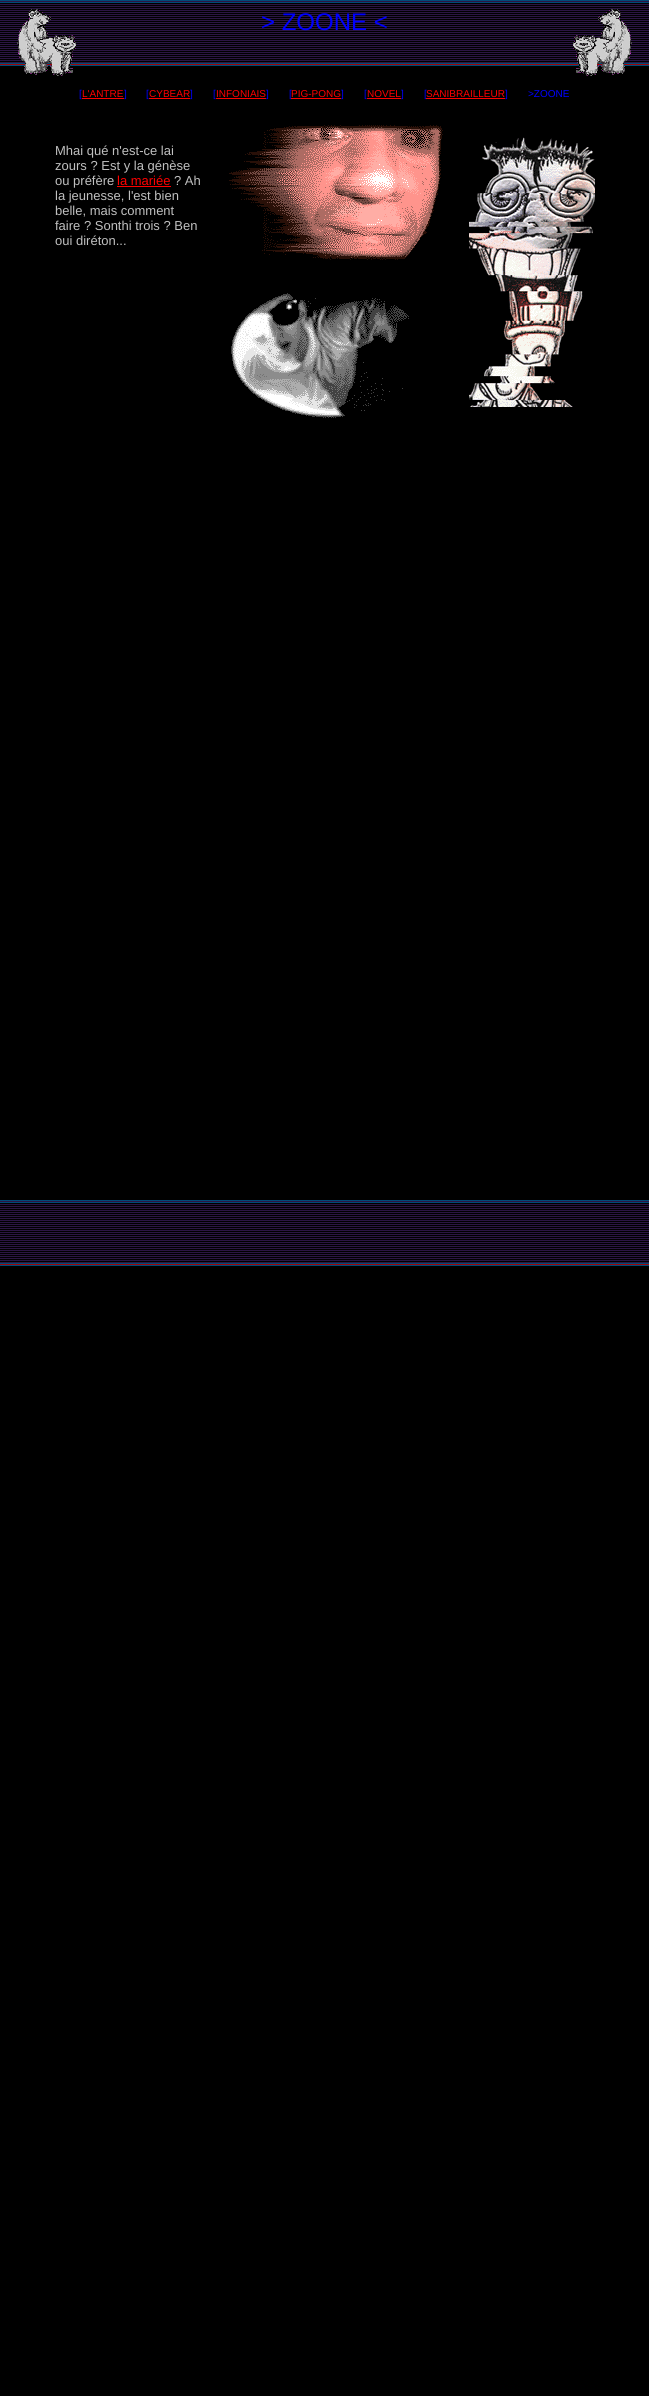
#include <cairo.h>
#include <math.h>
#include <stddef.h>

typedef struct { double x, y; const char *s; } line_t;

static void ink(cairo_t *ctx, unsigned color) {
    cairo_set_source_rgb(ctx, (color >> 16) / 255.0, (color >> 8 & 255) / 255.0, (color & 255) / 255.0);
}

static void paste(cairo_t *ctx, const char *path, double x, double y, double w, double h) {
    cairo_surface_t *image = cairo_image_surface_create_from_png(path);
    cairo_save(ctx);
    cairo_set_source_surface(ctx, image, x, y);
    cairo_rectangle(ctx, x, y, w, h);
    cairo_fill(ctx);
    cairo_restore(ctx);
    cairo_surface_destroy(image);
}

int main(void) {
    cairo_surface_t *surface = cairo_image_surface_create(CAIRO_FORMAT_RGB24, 649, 2396);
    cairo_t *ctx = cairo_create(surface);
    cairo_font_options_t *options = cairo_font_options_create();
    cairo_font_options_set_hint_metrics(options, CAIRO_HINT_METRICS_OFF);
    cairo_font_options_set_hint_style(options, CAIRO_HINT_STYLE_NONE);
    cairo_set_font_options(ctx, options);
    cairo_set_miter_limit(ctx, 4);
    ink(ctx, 0x000000);
    cairo_paint(ctx);
    paste(ctx, "media/1.png", 0, 0, 649, 1266);
    paste(ctx, "media/2.png", 17, 9, 59, 67);
    cairo_select_font_face(ctx, "Liberation Sans", CAIRO_FONT_SLANT_NORMAL, CAIRO_FONT_WEIGHT_NORMAL);
    cairo_set_font_size(ctx, 24);
    ink(ctx, 0x0000FF);
    cairo_move_to(ctx, 261, 30);
    cairo_show_text(ctx, "> ZOONE <");
    cairo_set_font_size(ctx, 10);
    cairo_move_to(ctx, 79, 97);
    cairo_show_text(ctx, "[");
    ink(ctx, 0xFF0000);
    cairo_rectangle(ctx, 82, 98, 42, 1);
    cairo_fill(ctx);
    cairo_move_to(ctx, 82, 97);
    cairo_show_text(ctx, "L'ANTRE");
    ink(ctx, 0x0000FF);
    cairo_move_to(ctx, 124, 97);
    cairo_show_text(ctx, "]");
    cairo_move_to(ctx, 146, 97);
    cairo_show_text(ctx, "[");
    ink(ctx, 0xFF0000);
    cairo_rectangle(ctx, 149, 98, 41, 1);
    cairo_fill(ctx);
    cairo_move_to(ctx, 149, 97);
    cairo_show_text(ctx, "CYBEAR");
    ink(ctx, 0x0000FF);
    cairo_move_to(ctx, 190, 97);
    cairo_show_text(ctx, "]");
    cairo_move_to(ctx, 213, 97);
    cairo_show_text(ctx, "[");
    ink(ctx, 0xFF0000);
    cairo_rectangle(ctx, 216, 98, 50, 1);
    cairo_fill(ctx);
    cairo_move_to(ctx, 216, 97);
    cairo_show_text(ctx, "INFONIAIS");
    ink(ctx, 0x0000FF);
    cairo_move_to(ctx, 266, 97);
    cairo_show_text(ctx, "]");
    cairo_move_to(ctx, 289, 97);
    cairo_show_text(ctx, "[");
    ink(ctx, 0xFF0000);
    cairo_rectangle(ctx, 291, 98, 50, 1);
    cairo_fill(ctx);
    cairo_move_to(ctx, 291, 97);
    cairo_show_text(ctx, "PIG-PONG");
    ink(ctx, 0x0000FF);
    cairo_move_to(ctx, 341, 97);
    cairo_show_text(ctx, "]");
    cairo_move_to(ctx, 364, 97);
    cairo_show_text(ctx, "[");
    ink(ctx, 0xFF0000);
    cairo_rectangle(ctx, 367, 98, 34, 1);
    cairo_fill(ctx);
    cairo_move_to(ctx, 367, 97);
    cairo_show_text(ctx, "NOVEL");
    ink(ctx, 0x0000FF);
    cairo_move_to(ctx, 401, 97);
    cairo_show_text(ctx, "]");
    cairo_move_to(ctx, 424, 97);
    cairo_show_text(ctx, "[");
    ink(ctx, 0xFF0000);
    cairo_rectangle(ctx, 426, 98, 79, 1);
    cairo_fill(ctx);
    cairo_move_to(ctx, 426, 97);
    cairo_show_text(ctx, "SANIBRAILLEUR");
    ink(ctx, 0x0000FF);
    cairo_move_to(ctx, 505, 97);
    cairo_show_text(ctx, "]");
    cairo_move_to(ctx, 528, 97);
    cairo_show_text(ctx, ">ZOONE");
    cairo_set_font_size(ctx, 13);
    ink(ctx, 0xC0C0C0);
    {
        static const line_t items[] = {
            {55, 155, "Mhai qué n'est-ce lai"},
            {55, 170, "zours ? Est y la génèse"},
            {55, 185, "ou préfère"},
        };
        for (size_t i = 0; i < sizeof items / sizeof *items; i++) {
            cairo_move_to(ctx, items[i].x, items[i].y);
            cairo_show_text(ctx, items[i].s);
        }
    }
    ink(ctx, 0xFF0000);
    cairo_move_to(ctx, 117, 185);
    cairo_show_text(ctx, "la mariée");
    cairo_rectangle(ctx, 117, 186, 54, 1);
    cairo_fill(ctx);
    ink(ctx, 0xC0C0C0);
    {
        static const line_t items[] = {
            {174, 185, "? Ah"},
            {55, 200, "la jeunesse, l'est bien"},
            {55, 215, "belle, mais comment"},
            {55, 230, "faire ? Sonthi trois ? Ben"},
            {55, 245, "oui diréton..."},
        };
        for (size_t i = 0; i < sizeof items / sizeof *items; i++) {
            cairo_move_to(ctx, items[i].x, items[i].y);
            cairo_show_text(ctx, items[i].s);
        }
    }
    paste(ctx, "media/3.png", 229, 125, 214, 135);
    paste(ctx, "media/4.png", 469, 137, 126, 270);
    paste(ctx, "media/5.png", 231, 293, 178, 125);
    paste(ctx, "media/6.png", 573, 9, 59, 67);
    cairo_surface_write_to_png(surface, "image.png");
    cairo_font_options_destroy(options);
    cairo_destroy(ctx);
    cairo_surface_destroy(surface);
    return 0;
}
